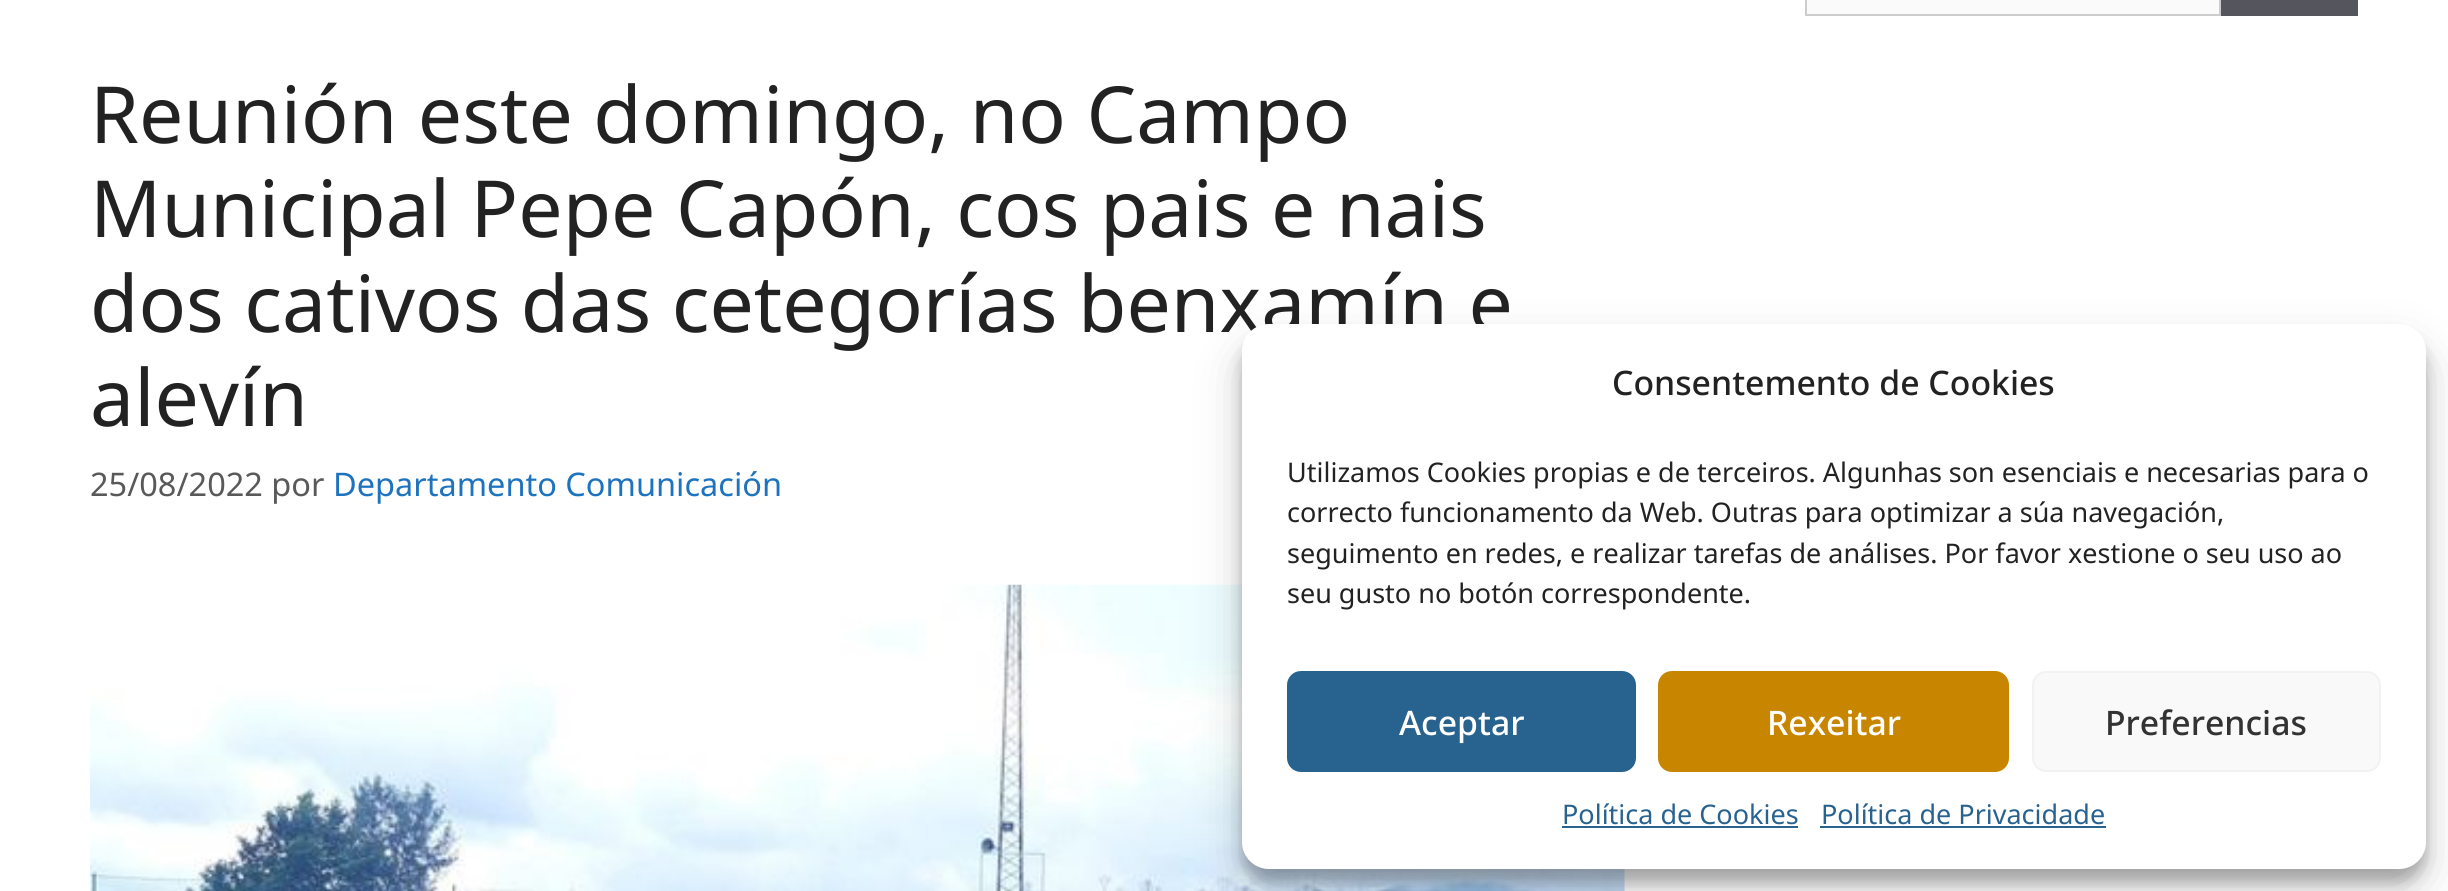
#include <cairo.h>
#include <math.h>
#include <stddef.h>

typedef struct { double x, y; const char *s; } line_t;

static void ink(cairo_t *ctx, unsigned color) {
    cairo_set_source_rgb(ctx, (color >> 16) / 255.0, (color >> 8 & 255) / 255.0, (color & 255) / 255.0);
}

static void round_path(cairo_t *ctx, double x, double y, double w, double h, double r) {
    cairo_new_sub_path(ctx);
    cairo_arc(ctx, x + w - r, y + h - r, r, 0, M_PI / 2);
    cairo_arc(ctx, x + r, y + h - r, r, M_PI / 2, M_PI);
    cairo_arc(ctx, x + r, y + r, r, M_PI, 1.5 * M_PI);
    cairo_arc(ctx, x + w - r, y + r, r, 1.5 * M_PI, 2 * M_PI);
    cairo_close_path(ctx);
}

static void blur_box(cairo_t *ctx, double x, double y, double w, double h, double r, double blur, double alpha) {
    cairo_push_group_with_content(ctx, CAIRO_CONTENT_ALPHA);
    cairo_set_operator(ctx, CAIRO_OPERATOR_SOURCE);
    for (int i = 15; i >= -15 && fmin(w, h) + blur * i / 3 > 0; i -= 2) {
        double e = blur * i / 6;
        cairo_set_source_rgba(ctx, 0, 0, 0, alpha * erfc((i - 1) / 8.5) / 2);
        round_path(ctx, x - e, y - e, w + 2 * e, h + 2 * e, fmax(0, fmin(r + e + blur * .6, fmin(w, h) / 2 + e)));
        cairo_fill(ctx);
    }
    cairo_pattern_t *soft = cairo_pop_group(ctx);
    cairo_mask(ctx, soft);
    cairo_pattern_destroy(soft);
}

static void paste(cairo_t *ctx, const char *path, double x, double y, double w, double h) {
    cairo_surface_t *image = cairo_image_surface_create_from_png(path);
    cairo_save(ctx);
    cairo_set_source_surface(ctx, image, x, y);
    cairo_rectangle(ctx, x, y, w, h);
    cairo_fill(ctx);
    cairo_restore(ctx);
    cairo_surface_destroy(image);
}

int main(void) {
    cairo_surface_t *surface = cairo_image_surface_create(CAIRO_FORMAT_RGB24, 2448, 891);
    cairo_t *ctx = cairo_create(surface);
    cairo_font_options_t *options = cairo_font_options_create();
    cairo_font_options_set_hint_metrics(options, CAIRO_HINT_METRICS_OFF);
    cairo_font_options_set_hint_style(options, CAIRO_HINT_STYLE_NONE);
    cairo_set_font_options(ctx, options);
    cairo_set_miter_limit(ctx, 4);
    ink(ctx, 0xFFFFFF);
    cairo_paint(ctx);
    ink(ctx, 0xFAFAFA);
    cairo_rectangle(ctx, 1806, -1, 414, 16);
    cairo_fill_preserve(ctx);
    ink(ctx, 0xCCCCCC);
    cairo_stroke(ctx);
    ink(ctx, 0x55555E);
    cairo_rectangle(ctx, 2221, 0, 137, 16);
    cairo_fill(ctx);
    cairo_select_font_face(ctx, "Noto Sans", CAIRO_FONT_SLANT_NORMAL, CAIRO_FONT_WEIGHT_NORMAL);
    cairo_set_font_size(ctx, 78.75);
    ink(ctx, 0x222222);
    {
        static const line_t items[] = {
            {90, 143, "Reunión este domingo, no Campo"},
            {90, 237, "Municipal Pepe Capón, cos pais e nais"},
            {90, 332, "dos cativos das cetegorías benxamín e"},
            {90, 426, "alevín"},
        };
        for (size_t i = 0; i < sizeof items / sizeof *items; i++) {
            cairo_move_to(ctx, items[i].x, items[i].y);
            cairo_show_text(ctx, items[i].s);
        }
    }
    cairo_set_font_size(ctx, 32.5);
    ink(ctx, 0x595959);
    cairo_move_to(ctx, 90, 496);
    cairo_show_text(ctx, "25/08/2022 por");
    ink(ctx, 0x1E73BE);
    cairo_move_to(ctx, 333, 496);
    cairo_show_text(ctx, "Departamento Comunicación");
    paste(ctx, "media/1.png", 90, 584, 1535, 307);
    ink(ctx, 0x000000);
    blur_box(ctx, 1242, 338, 1184, 544, 27, 7, 0.23);
    blur_box(ctx, 1242, 347, 1184, 544, 27, 22.5, 0.19);
    ink(ctx, 0xFFFFFF);
    round_path(ctx, 1242, 324, 1184, 545, 27);
    cairo_fill(ctx);
    cairo_select_font_face(ctx, "Noto Sans Medium", CAIRO_FONT_SLANT_NORMAL, CAIRO_FONT_WEIGHT_NORMAL);
    cairo_set_font_size(ctx, 33.75);
    ink(ctx, 0x222222);
    cairo_move_to(ctx, 1612, 395);
    cairo_show_text(ctx, "Consentemento de Cookies");
    cairo_select_font_face(ctx, "Noto Sans", CAIRO_FONT_SLANT_NORMAL, CAIRO_FONT_WEIGHT_NORMAL);
    cairo_set_font_size(ctx, 27);
    {
        static const line_t items[] = {
            {1287, 482, "Utilizamos Cookies propias e de terceiros. Algunhas son esenciais e necesarias para o"},
            {1287, 522, "correcto funcionamento da Web. Outras para optimizar a súa navegación,"},
            {1287, 563, "seguimento en redes, e realizar tarefas de análises. Por favor xestione o seu uso ao"},
            {1287, 603, "seu gusto no botón correspondente."},
        };
        for (size_t i = 0; i < sizeof items / sizeof *items; i++) {
            cairo_move_to(ctx, items[i].x, items[i].y);
            cairo_show_text(ctx, items[i].s);
        }
    }
    ink(ctx, 0x28628E);
    round_path(ctx, 1288, 672, 347, 99, 13);
    cairo_fill_preserve(ctx);
    cairo_stroke(ctx);
    cairo_select_font_face(ctx, "Noto Sans Medium", CAIRO_FONT_SLANT_NORMAL, CAIRO_FONT_WEIGHT_NORMAL);
    cairo_set_font_size(ctx, 33.75);
    ink(ctx, 0xFFFFFF);
    cairo_move_to(ctx, 1399, 735);
    cairo_show_text(ctx, "Aceptar");
    ink(ctx, 0xC88500);
    round_path(ctx, 1659, 672, 349, 99, 13);
    cairo_fill_preserve(ctx);
    cairo_stroke(ctx);
    ink(ctx, 0xFFFFFF);
    cairo_move_to(ctx, 1767, 735);
    cairo_show_text(ctx, "Rexeitar");
    ink(ctx, 0xF9F9F9);
    round_path(ctx, 2033, 672, 347, 99, 13);
    cairo_fill_preserve(ctx);
    ink(ctx, 0xF2F2F2);
    cairo_stroke(ctx);
    ink(ctx, 0x333333);
    cairo_move_to(ctx, 2105, 735);
    cairo_show_text(ctx, "Preferencias");
    cairo_select_font_face(ctx, "Noto Sans", CAIRO_FONT_SLANT_NORMAL, CAIRO_FONT_WEIGHT_NORMAL);
    cairo_set_font_size(ctx, 27);
    ink(ctx, 0x28628E);
    cairo_move_to(ctx, 1562, 824);
    cairo_show_text(ctx, "Política de Cookies");
    cairo_rectangle(ctx, 1562, 826, 236, 2);
    cairo_fill(ctx);
    cairo_move_to(ctx, 1821, 824);
    cairo_show_text(ctx, "Política de Privacidade");
    cairo_rectangle(ctx, 1820, 826, 286, 2);
    cairo_fill(ctx);
    cairo_surface_write_to_png(surface, "image.png");
    cairo_font_options_destroy(options);
    cairo_destroy(ctx);
    cairo_surface_destroy(surface);
    return 0;
}
